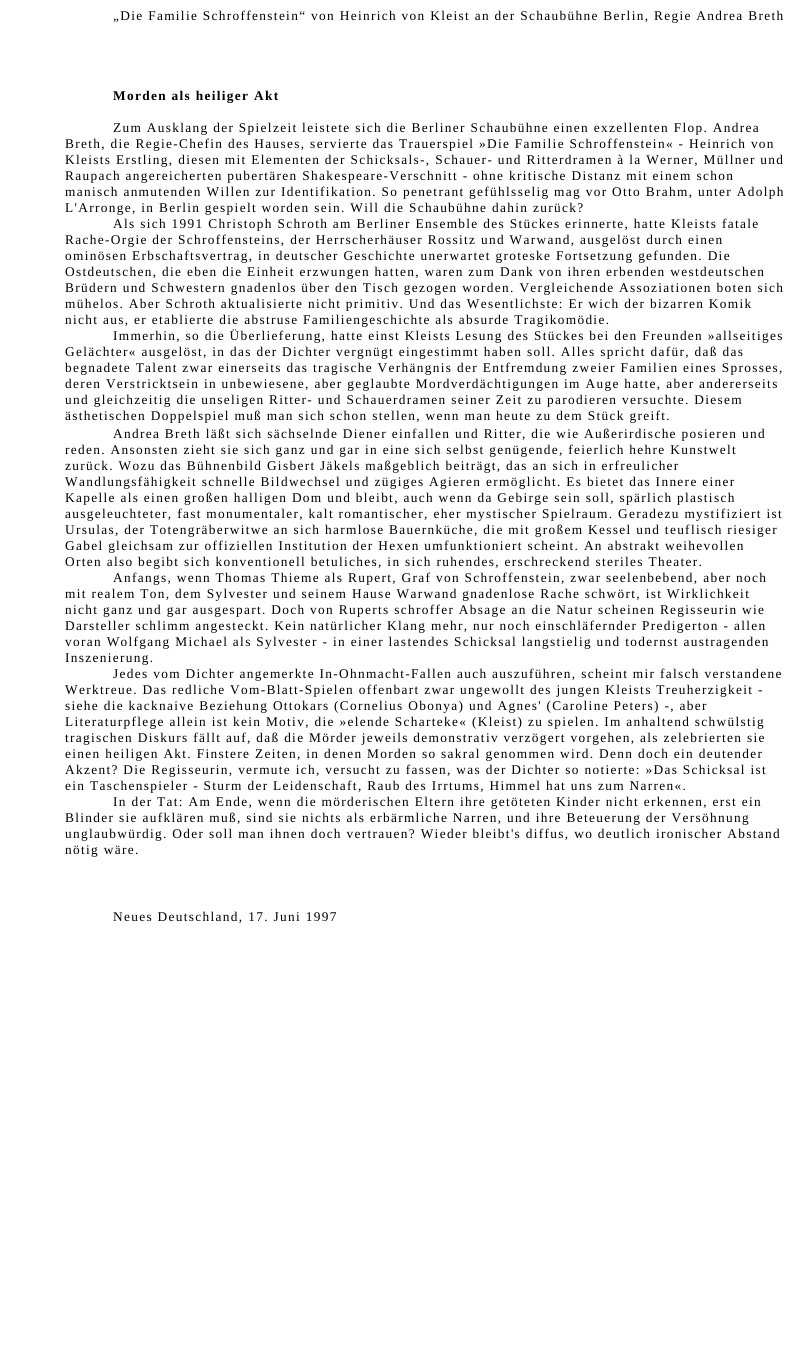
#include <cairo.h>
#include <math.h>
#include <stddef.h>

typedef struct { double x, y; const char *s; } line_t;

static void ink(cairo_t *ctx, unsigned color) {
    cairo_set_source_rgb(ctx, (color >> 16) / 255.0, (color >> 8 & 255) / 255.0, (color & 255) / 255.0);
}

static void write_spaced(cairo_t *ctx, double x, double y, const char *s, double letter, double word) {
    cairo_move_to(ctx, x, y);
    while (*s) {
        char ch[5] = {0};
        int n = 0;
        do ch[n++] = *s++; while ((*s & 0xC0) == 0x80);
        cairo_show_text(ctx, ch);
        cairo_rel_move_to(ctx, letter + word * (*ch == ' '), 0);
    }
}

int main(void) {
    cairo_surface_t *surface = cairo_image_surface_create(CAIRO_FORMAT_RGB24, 793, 1365);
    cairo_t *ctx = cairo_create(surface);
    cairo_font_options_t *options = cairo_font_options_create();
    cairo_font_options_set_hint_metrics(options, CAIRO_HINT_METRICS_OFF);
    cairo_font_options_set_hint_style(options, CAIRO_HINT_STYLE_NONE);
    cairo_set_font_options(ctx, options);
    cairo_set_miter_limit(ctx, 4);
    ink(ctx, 0xFFFFFF);
    cairo_paint(ctx);
    cairo_select_font_face(ctx, "Liberation Serif", CAIRO_FONT_SLANT_NORMAL, CAIRO_FONT_WEIGHT_NORMAL);
    cairo_set_font_size(ctx, 13.33);
    ink(ctx, 0x000000);
    write_spaced(ctx, 113, 20, "„Die Familie Schroffenstein“ von Heinrich von Kleist an der Schaubühne Berlin, Regie Andrea Breth", 1.33, 0);
    cairo_select_font_face(ctx, "Liberation Serif", CAIRO_FONT_SLANT_NORMAL, CAIRO_FONT_WEIGHT_BOLD);
    write_spaced(ctx, 113, 100, "Morden als heiliger Akt", 1.33, 0);
    cairo_select_font_face(ctx, "Liberation Serif", CAIRO_FONT_SLANT_NORMAL, CAIRO_FONT_WEIGHT_NORMAL);
    {
        static const line_t items[] = {
            {113, 132, "Zum Ausklang der Spielzeit leistete sich die Berliner Schaubühne einen exzellenten Flop. Andrea"},
            {65, 148, "Breth, die Regie-Chefin des Hauses, servierte das Trauerspiel »Die Familie Schroffenstein« - Heinrich von"},
            {65, 164, "Kleists Erstling, diesen mit Elementen der Schicksals-, Schauer- und Ritterdramen à la Werner, Müllner und"},
            {65, 180, "Raupach angereicherten pubertären Shakespeare-Verschnitt - ohne kritische Distanz mit einem schon"},
            {65, 196, "manisch anmutenden Willen zur Identifikation. So penetrant gefühlsselig mag vor Otto Brahm, unter Adolph"},
            {65, 212, "L'Arronge, in Berlin gespielt worden sein. Will die Schaubühne dahin zurück?"},
            {113, 228, "Als sich 1991 Christoph Schroth am Berliner Ensemble des Stückes erinnerte, hatte Kleists fatale"},
            {65, 244, "Rache-Orgie der Schroffensteins, der Herrscherhäuser Rossitz und Warwand, ausgelöst durch einen"},
            {65, 260, "ominösen Erbschaftsvertrag, in deutscher Geschichte unerwartet groteske Fortsetzung gefunden. Die"},
            {65, 276, "Ostdeutschen, die eben die Einheit erzwungen hatten, waren zum Dank von ihren erbenden westdeutschen"},
            {65, 292, "Brüdern und Schwestern gnadenlos über den Tisch gezogen worden. Vergleichende Assoziationen boten sich"},
            {65, 308, "mühelos. Aber Schroth aktualisierte nicht primitiv. Und das Wesentlichste: Er wich der bizarren Komik"},
            {65, 324, "nicht aus, er etablierte die abstruse Familiengeschichte als absurde Tragikomödie."},
            {113, 340, "Immerhin, so die Überlieferung, hatte einst Kleists Lesung des Stückes bei den Freunden »allseitiges"},
            {65, 356, "Gelächter« ausgelöst, in das der Dichter vergnügt eingestimmt haben soll. Alles spricht dafür, daß das"},
            {65, 372, "begnadete Talent zwar einerseits das tragische Verhängnis der Entfremdung zweier Familien eines Sprosses,"},
            {65, 388, "deren Verstricktsein in unbewiesene, aber geglaubte Mordverdächtigungen im Auge hatte, aber andererseits"},
            {65, 404, "und gleichzeitig die unseligen Ritter- und Schauerdramen seiner Zeit zu parodieren versuchte. Diesem"},
            {65, 420, "ästhetischen Doppelspiel muß man sich schon stellen, wenn man heute zu dem Stück greift."},
            {113, 438, "Andrea Breth läßt sich sächselnde Diener einfallen und Ritter, die wie Außerirdische posieren und"},
            {65, 454, "reden. Ansonsten zieht sie sich ganz und gar in eine sich selbst genügende, feierlich hehre Kunstwelt"},
            {65, 470, "zurück. Wozu das Bühnenbild Gisbert Jäkels maßgeblich beiträgt, das an sich in erfreulicher"},
            {65, 486, "Wandlungsfähigkeit schnelle Bildwechsel und zügiges Agieren ermöglicht. Es bietet das Innere einer"},
            {65, 502, "Kapelle als einen großen halligen Dom und bleibt, auch wenn da Gebirge sein soll, spärlich plastisch"},
            {65, 518, "ausgeleuchteter, fast monumentaler, kalt romantischer, eher mystischer Spielraum. Geradezu mystifiziert ist"},
            {65, 534, "Ursulas, der Totengräberwitwe an sich harmlose Bauernküche, die mit großem Kessel und teuflisch riesiger"},
            {65, 550, "Gabel gleichsam zur offiziellen Institution der Hexen umfunktioniert scheint. An abstrakt weihevollen"},
            {65, 566, "Orten also begibt sich konventionell betuliches, in sich ruhendes, erschreckend steriles Theater."},
            {113, 582, "Anfangs, wenn Thomas Thieme als Rupert, Graf von Schroffenstein, zwar seelenbebend, aber noch"},
            {65, 598, "mit realem Ton, dem Sylvester und seinem Hause Warwand gnadenlose Rache schwört, ist Wirklichkeit"},
            {65, 614, "nicht ganz und gar ausgespart. Doch von Ruperts schroffer Absage an die Natur scheinen Regisseurin wie"},
            {65, 630, "Darsteller schlimm angesteckt. Kein natürlicher Klang mehr, nur noch einschläfernder Predigerton - allen"},
            {65, 646, "voran Wolfgang Michael als Sylvester - in einer lastendes Schicksal langstielig und todernst austragenden"},
            {65, 662, "Inszenierung."},
            {113, 678, "Jedes vom Dichter angemerkte In-Ohnmacht-Fallen auch auszuführen, scheint mir falsch verstandene"},
            {65, 694, "Werktreue. Das redliche Vom-Blatt-Spielen offenbart zwar ungewollt des jungen Kleists Treuherzigkeit -"},
            {65, 710, "siehe die kacknaive Beziehung Ottokars (Cornelius Obonya) und Agnes' (Caroline Peters) -, aber"},
            {65, 726, "Literaturpflege allein ist kein Motiv, die »elende Scharteke« (Kleist) zu spielen. Im anhaltend schwülstig"},
            {65, 742, "tragischen Diskurs fällt auf, daß die Mörder jeweils demonstrativ verzögert vorgehen, als zelebrierten sie"},
            {65, 758, "einen heiligen Akt. Finstere Zeiten, in denen Morden so sakral genommen wird. Denn doch ein deutender"},
            {65, 774, "Akzent? Die Regisseurin, vermute ich, versucht zu fassen, was der Dichter so notierte: »Das Schicksal ist"},
            {65, 790, "ein Taschenspieler - Sturm der Leidenschaft, Raub des Irrtums, Himmel hat uns zum Narren«."},
            {113, 806, "In der Tat: Am Ende, wenn die mörderischen Eltern ihre getöteten Kinder nicht erkennen, erst ein"},
            {65, 822, "Blinder sie aufklären muß, sind sie nichts als erbärmliche Narren, und ihre Beteuerung der Versöhnung"},
            {65, 838, "unglaubwürdig. Oder soll man ihnen doch vertrauen? Wieder bleibt's diffus, wo deutlich ironischer Abstand"},
            {65, 854, "nötig wäre."},
            {113, 921, "Neues Deutschland, 17. Juni 1997"},
        };
        for (size_t i = 0; i < sizeof items / sizeof *items; i++) {
            write_spaced(ctx, items[i].x, items[i].y, items[i].s, 1.33, 0);
        }
    }
    cairo_surface_write_to_png(surface, "image.png");
    cairo_font_options_destroy(options);
    cairo_destroy(ctx);
    cairo_surface_destroy(surface);
    return 0;
}
